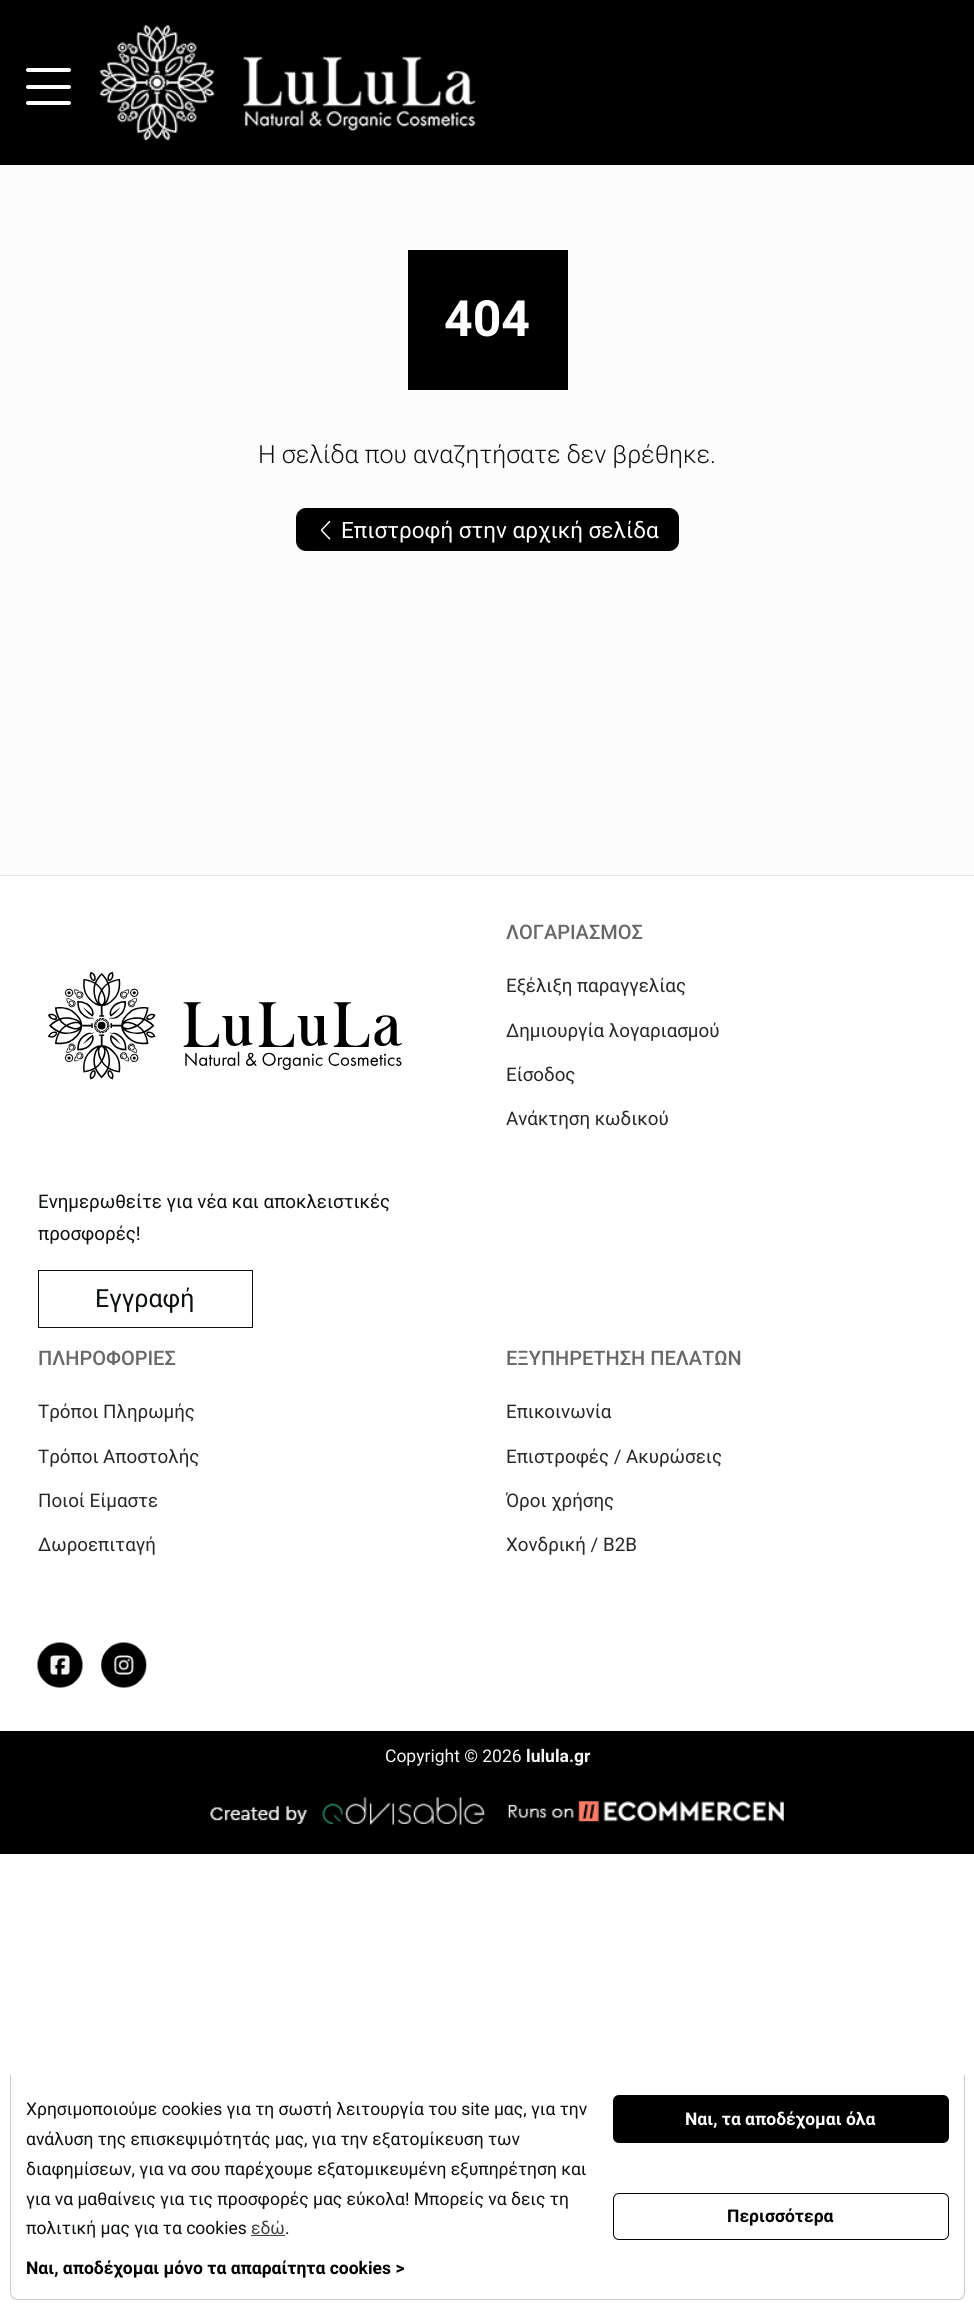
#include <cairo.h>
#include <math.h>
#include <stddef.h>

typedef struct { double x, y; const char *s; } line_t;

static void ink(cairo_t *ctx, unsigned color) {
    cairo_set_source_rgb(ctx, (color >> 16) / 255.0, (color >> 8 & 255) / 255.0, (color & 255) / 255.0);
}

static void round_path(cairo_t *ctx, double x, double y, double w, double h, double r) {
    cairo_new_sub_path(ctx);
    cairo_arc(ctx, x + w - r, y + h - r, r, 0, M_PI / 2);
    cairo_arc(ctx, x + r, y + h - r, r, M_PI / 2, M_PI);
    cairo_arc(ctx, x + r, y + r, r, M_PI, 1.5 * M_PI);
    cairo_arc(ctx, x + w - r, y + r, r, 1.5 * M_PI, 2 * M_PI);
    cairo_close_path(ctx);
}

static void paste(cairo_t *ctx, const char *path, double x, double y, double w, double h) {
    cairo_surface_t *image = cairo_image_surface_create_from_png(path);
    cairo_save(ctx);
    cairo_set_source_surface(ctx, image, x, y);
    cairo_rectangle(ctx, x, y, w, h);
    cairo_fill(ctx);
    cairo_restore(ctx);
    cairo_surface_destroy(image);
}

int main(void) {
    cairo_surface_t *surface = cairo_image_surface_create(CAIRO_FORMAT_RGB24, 974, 2309);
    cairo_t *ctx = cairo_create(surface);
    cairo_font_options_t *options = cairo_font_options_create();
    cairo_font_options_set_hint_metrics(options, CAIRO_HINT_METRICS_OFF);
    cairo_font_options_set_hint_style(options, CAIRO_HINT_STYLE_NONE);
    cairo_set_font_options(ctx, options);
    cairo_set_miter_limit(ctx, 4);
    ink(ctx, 0xFFFFFF);
    cairo_paint(ctx);
    ink(ctx, 0x000000);
    cairo_rectangle(ctx, 0, 0, 974, 165);
    cairo_fill(ctx);
    ink(ctx, 0xFFFFFF);
    round_path(ctx, 26, 68, 45, 4, 2);
    cairo_fill(ctx);
    round_path(ctx, 26, 85, 45, 4, 2);
    cairo_fill(ctx);
    round_path(ctx, 26, 101, 45, 4, 2);
    cairo_fill(ctx);
    paste(ctx, "media/1.png", 99, 24, 377, 117);
    ink(ctx, 0xFCFCFC);
    cairo_rectangle(ctx, 0, 165, 974, 710);
    cairo_fill(ctx);
    ink(ctx, 0x000000);
    cairo_rectangle(ctx, 408, 250, 160, 140);
    cairo_fill(ctx);
    cairo_select_font_face(ctx, "Roboto", CAIRO_FONT_SLANT_NORMAL, CAIRO_FONT_WEIGHT_BOLD);
    cairo_set_font_size(ctx, 50);
    ink(ctx, 0xFFFFFF);
    cairo_move_to(ctx, 444, 336);
    cairo_show_text(ctx, "404");
    cairo_select_font_face(ctx, "Roboto Light", CAIRO_FONT_SLANT_NORMAL, CAIRO_FONT_WEIGHT_NORMAL);
    cairo_set_font_size(ctx, 25);
    ink(ctx, 0x0D1010);
    cairo_move_to(ctx, 258, 463);
    cairo_show_text(ctx, "H σελίδα που αναζητήσατε δεν βρέθηκε.");
    ink(ctx, 0x000000);
    round_path(ctx, 296, 508, 383, 43, 10);
    cairo_fill(ctx);
    paste(ctx, "media/2.png", 320, 520, 11, 20);
    cairo_select_font_face(ctx, "Roboto", CAIRO_FONT_SLANT_NORMAL, CAIRO_FONT_WEIGHT_NORMAL);
    cairo_set_font_size(ctx, 22.5);
    ink(ctx, 0xFFFFFF);
    cairo_move_to(ctx, 341, 538);
    cairo_show_text(ctx, "Επιστροφή στην αρχική σελίδα");
    ink(ctx, 0xE6E6E6);
    cairo_rectangle(ctx, 0, 875, 974, 1);
    cairo_fill(ctx);
    cairo_select_font_face(ctx, "Roboto Medium", CAIRO_FONT_SLANT_NORMAL, CAIRO_FONT_WEIGHT_NORMAL);
    cairo_set_font_size(ctx, 20);
    ink(ctx, 0x686868);
    cairo_move_to(ctx, 506, 939);
    cairo_show_text(ctx, "ΛΟΓΑΡΙΑΣΜΟΣ");
    cairo_select_font_face(ctx, "Roboto", CAIRO_FONT_SLANT_NORMAL, CAIRO_FONT_WEIGHT_NORMAL);
    cairo_set_font_size(ctx, 18.75);
    ink(ctx, 0x282828);
    {
        static const line_t items[] = {
            {506, 992, "Εξέλιξη παραγγελίας"},
            {506, 1037, "Δημιουργία λογαριασμού"},
            {506, 1081, "Είσοδος"},
            {506, 1125, "Ανάκτηση κωδικού"},
        };
        for (size_t i = 0; i < sizeof items / sizeof *items; i++) {
            cairo_move_to(ctx, items[i].x, items[i].y);
            cairo_show_text(ctx, items[i].s);
        }
    }
    paste(ctx, "media/3.png", 48, 971, 354, 109);
    ink(ctx, 0x0D1010);
    cairo_move_to(ctx, 38, 1208);
    cairo_show_text(ctx, "Ενημερωθείτε για νέα και αποκλειστικές");
    cairo_move_to(ctx, 38, 1240);
    cairo_show_text(ctx, "προσφορές!");
    cairo_rectangle(ctx, 38.5, 1270.5, 214, 57);
    cairo_set_line_width(ctx, 1);
    cairo_stroke(ctx);
    cairo_set_font_size(ctx, 25);
    cairo_move_to(ctx, 95, 1307);
    cairo_show_text(ctx, "Εγγραφή");
    cairo_select_font_face(ctx, "Roboto Medium", CAIRO_FONT_SLANT_NORMAL, CAIRO_FONT_WEIGHT_NORMAL);
    cairo_set_font_size(ctx, 20);
    ink(ctx, 0x686868);
    cairo_move_to(ctx, 38, 1365);
    cairo_show_text(ctx, "ΠΛΗΡΟΦΟΡΙΕΣ");
    cairo_select_font_face(ctx, "Roboto", CAIRO_FONT_SLANT_NORMAL, CAIRO_FONT_WEIGHT_NORMAL);
    cairo_set_font_size(ctx, 18.75);
    ink(ctx, 0x282828);
    {
        static const line_t items[] = {
            {38, 1418, "Τρόποι Πληρωμής"},
            {38, 1463, "Τρόποι Αποστολής"},
            {38, 1507, "Ποιοί Είμαστε"},
            {38, 1551, "Δωροεπιταγή"},
        };
        for (size_t i = 0; i < sizeof items / sizeof *items; i++) {
            cairo_move_to(ctx, items[i].x, items[i].y);
            cairo_show_text(ctx, items[i].s);
        }
    }
    cairo_select_font_face(ctx, "Roboto Medium", CAIRO_FONT_SLANT_NORMAL, CAIRO_FONT_WEIGHT_NORMAL);
    cairo_set_font_size(ctx, 20);
    ink(ctx, 0x686868);
    cairo_move_to(ctx, 506, 1365);
    cairo_show_text(ctx, "ΕΞΥΠΗΡΕΤΗΣΗ ΠΕΛΑΤΩΝ");
    cairo_select_font_face(ctx, "Roboto", CAIRO_FONT_SLANT_NORMAL, CAIRO_FONT_WEIGHT_NORMAL);
    cairo_set_font_size(ctx, 18.75);
    ink(ctx, 0x282828);
    {
        static const line_t items[] = {
            {506, 1418, "Επικοινωνία"},
            {506, 1463, "Επιστροφές / Ακυρώσεις"},
            {506, 1507, "Όροι χρήσης"},
            {506, 1551, "Χονδρική / B2B"},
        };
        for (size_t i = 0; i < sizeof items / sizeof *items; i++) {
            cairo_move_to(ctx, items[i].x, items[i].y);
            cairo_show_text(ctx, items[i].s);
        }
    }
    paste(ctx, "media/4.png", 37, 1642, 46, 46);
    paste(ctx, "media/5.png", 101, 1642, 46, 46);
    ink(ctx, 0x000000);
    cairo_rectangle(ctx, 0, 1731, 974, 123);
    cairo_fill(ctx);
    cairo_set_font_size(ctx, 17.5);
    ink(ctx, 0xF5F5F5);
    cairo_move_to(ctx, 385, 1762);
    cairo_show_text(ctx, "Copyright © 2026");
    cairo_select_font_face(ctx, "Roboto", CAIRO_FONT_SLANT_NORMAL, CAIRO_FONT_WEIGHT_BOLD);
    cairo_move_to(ctx, 526, 1762);
    cairo_show_text(ctx, "lulula.gr");
    paste(ctx, "media/6.png", 210, 1797, 275, 28);
    paste(ctx, "media/7.png", 508, 1801, 276, 21);
    ink(ctx, 0xCCCCCC);
    cairo_set_fill_rule(ctx, CAIRO_FILL_RULE_EVEN_ODD);
    cairo_new_path(ctx);
    cairo_move_to(ctx, 10, 2075);
    cairo_line_to(ctx, 965, 2075);
    cairo_line_to(ctx, 965, 2292);
    cairo_curve_to(ctx, 965, 2297, 962, 2300, 958, 2300);
    cairo_line_to(ctx, 18, 2300);
    cairo_curve_to(ctx, 13, 2300, 10, 2297, 10, 2292);
    cairo_close_path(ctx);
    cairo_move_to(ctx, 11, 2075);
    cairo_line_to(ctx, 964, 2075);
    cairo_line_to(ctx, 964, 2292);
    cairo_curve_to(ctx, 964, 2296, 961, 2299, 958, 2299);
    cairo_line_to(ctx, 18, 2299);
    cairo_curve_to(ctx, 14, 2299, 11, 2296, 11, 2292);
    cairo_close_path(ctx);
    cairo_fill(ctx);
    cairo_select_font_face(ctx, "Roboto", CAIRO_FONT_SLANT_NORMAL, CAIRO_FONT_WEIGHT_NORMAL);
    ink(ctx, 0x0D1010);
    {
        static const line_t items[] = {
            {26, 2115, "Χρησιμοποιούμε cookies για τη σωστή λειτουργία του site μας, για την"},
            {26, 2145, "ανάλυση της επισκεψιμότητάς μας, για την εξατομίκευση των"},
            {26, 2175, "διαφημίσεων, για να σου παρέχουμε εξατομικευμένη εξυπηρέτηση και"},
            {26, 2205, "για να μαθαίνεις για τις προσφορές μας εύκολα! Μπορείς να δεις τη"},
            {26, 2234, "πολιτική μας για τα cookies"},
        };
        for (size_t i = 0; i < sizeof items / sizeof *items; i++) {
            cairo_move_to(ctx, items[i].x, items[i].y);
            cairo_show_text(ctx, items[i].s);
        }
    }
    ink(ctx, 0x404040);
    cairo_move_to(ctx, 251, 2234);
    cairo_show_text(ctx, "εδώ");
    cairo_rectangle(ctx, 251, 2235, 34, 1);
    cairo_fill(ctx);
    ink(ctx, 0x0D1010);
    cairo_move_to(ctx, 285, 2234);
    cairo_show_text(ctx, ".");
    cairo_select_font_face(ctx, "Roboto", CAIRO_FONT_SLANT_NORMAL, CAIRO_FONT_WEIGHT_BOLD);
    ink(ctx, 0x000000);
    cairo_move_to(ctx, 26, 2274);
    cairo_show_text(ctx, "Ναι, αποδέχομαι μόνο τα απαραίτητα cookies >");
    round_path(ctx, 613, 2095, 336, 48, 6);
    cairo_fill(ctx);
    ink(ctx, 0xFFFFFF);
    cairo_move_to(ctx, 685, 2125);
    cairo_show_text(ctx, "Ναι, τα αποδέχομαι όλα");
    round_path(ctx, 613.5, 2193.5, 335, 46, 5.5);
    ink(ctx, 0x000000);
    cairo_stroke(ctx);
    cairo_move_to(ctx, 727, 2222);
    cairo_show_text(ctx, "Περισσότερα");
    cairo_surface_write_to_png(surface, "image.png");
    cairo_font_options_destroy(options);
    cairo_destroy(ctx);
    cairo_surface_destroy(surface);
    return 0;
}
